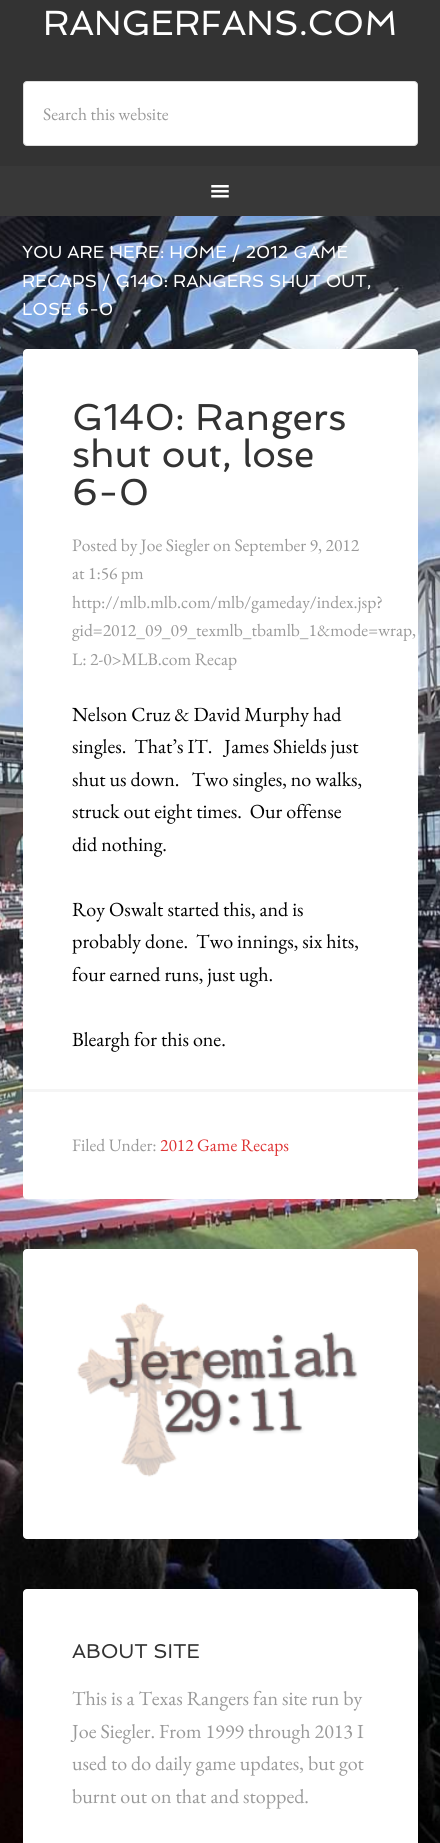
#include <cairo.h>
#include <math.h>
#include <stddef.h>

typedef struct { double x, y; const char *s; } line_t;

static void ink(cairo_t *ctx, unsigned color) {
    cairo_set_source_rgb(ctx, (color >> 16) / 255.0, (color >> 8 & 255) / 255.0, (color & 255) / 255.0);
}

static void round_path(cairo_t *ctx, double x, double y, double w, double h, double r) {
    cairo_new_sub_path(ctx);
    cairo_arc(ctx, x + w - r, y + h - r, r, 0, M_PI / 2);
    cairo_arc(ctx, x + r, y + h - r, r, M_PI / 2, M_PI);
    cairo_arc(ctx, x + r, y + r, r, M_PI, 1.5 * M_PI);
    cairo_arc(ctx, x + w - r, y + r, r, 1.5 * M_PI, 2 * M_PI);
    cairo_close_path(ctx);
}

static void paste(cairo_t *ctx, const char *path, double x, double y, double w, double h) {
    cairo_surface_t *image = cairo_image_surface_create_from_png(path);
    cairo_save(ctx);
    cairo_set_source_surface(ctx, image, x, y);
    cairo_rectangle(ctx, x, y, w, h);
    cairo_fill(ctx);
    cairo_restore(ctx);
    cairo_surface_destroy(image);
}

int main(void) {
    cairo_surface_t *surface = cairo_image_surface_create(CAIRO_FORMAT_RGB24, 440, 1843);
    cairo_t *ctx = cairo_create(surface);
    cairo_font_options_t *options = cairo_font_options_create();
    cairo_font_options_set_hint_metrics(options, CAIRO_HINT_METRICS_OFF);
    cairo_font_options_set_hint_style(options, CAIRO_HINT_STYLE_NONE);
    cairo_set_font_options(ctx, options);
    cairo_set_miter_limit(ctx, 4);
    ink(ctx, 0xFFFFFF);
    cairo_paint(ctx);
    ink(ctx, 0x333333);
    cairo_rectangle(ctx, 0, 0, 440, 166);
    cairo_fill(ctx);
    cairo_select_font_face(ctx, "Spinnaker", CAIRO_FONT_SLANT_NORMAL, CAIRO_FONT_WEIGHT_NORMAL);
    cairo_set_font_size(ctx, 35);
    ink(ctx, 0xFFFFFF);
    cairo_move_to(ctx, 43, 35);
    cairo_show_text(ctx, "RANGERFANS.COM");
    round_path(ctx, 23.5, 81.5, 394, 64, 3.5);
    cairo_fill_preserve(ctx);
    ink(ctx, 0xDDDDDD);
    cairo_set_line_width(ctx, 1);
    cairo_stroke(ctx);
    cairo_select_font_face(ctx, "EB Garamond", CAIRO_FONT_SLANT_NORMAL, CAIRO_FONT_WEIGHT_NORMAL);
    cairo_set_font_size(ctx, 17.5);
    ink(ctx, 0x999999);
    cairo_move_to(ctx, 43, 120);
    cairo_show_text(ctx, "Search this website");
    paste(ctx, "media/1.png", 0, 216, 440, 1627);
    ink(ctx, 0x383838);
    cairo_rectangle(ctx, 0, 166, 440, 50);
    cairo_fill(ctx);
    paste(ctx, "media/2.png", 211, 185, 18, 13);
    cairo_select_font_face(ctx, "Spinnaker", CAIRO_FONT_SLANT_NORMAL, CAIRO_FONT_WEIGHT_NORMAL);
    ink(ctx, 0xFFFFFF);
    {
        static const line_t items[] = {
            {22, 258, "YOU ARE HERE: HOME / 2012 GAME"},
            {22, 287, "RECAPS / G140: RANGERS SHUT OUT,"},
            {22, 315, "LOSE 6-0"},
        };
        for (size_t i = 0; i < sizeof items / sizeof *items; i++) {
            cairo_move_to(ctx, items[i].x, items[i].y);
            cairo_show_text(ctx, items[i].s);
        }
    }
    round_path(ctx, 23, 349, 395, 850, 4);
    cairo_fill(ctx);
    cairo_set_font_size(ctx, 37.5);
    ink(ctx, 0x333333);
    {
        static const line_t items[] = {
            {72, 430, "G140: Rangers"},
            {72, 467, "shut out, lose"},
            {72, 505, "6-0"},
        };
        for (size_t i = 0; i < sizeof items / sizeof *items; i++) {
            cairo_move_to(ctx, items[i].x, items[i].y);
            cairo_show_text(ctx, items[i].s);
        }
    }
    cairo_select_font_face(ctx, "EB Garamond", CAIRO_FONT_SLANT_NORMAL, CAIRO_FONT_WEIGHT_NORMAL);
    cairo_set_font_size(ctx, 17.5);
    ink(ctx, 0x999999);
    {
        static const line_t items[] = {
            {72, 551, "Posted by Joe Siegler on September 9, 2012"},
            {72, 579, "at 1:56 pm"},
            {72, 608, "http://mlb.mlb.com/mlb/gameday/index.jsp?"},
            {72, 636, "gid=2012_09_09_texmlb_tbamlb_1&mode=wrap,"},
            {72, 665, "L: 2-0>MLB.com Recap"},
        };
        for (size_t i = 0; i < sizeof items / sizeof *items; i++) {
            cairo_move_to(ctx, items[i].x, items[i].y);
            cairo_show_text(ctx, items[i].s);
        }
    }
    cairo_set_font_size(ctx, 20);
    ink(ctx, 0x000000);
    {
        static const line_t items[] = {
            {72, 721, "Nelson Cruz & David Murphy had"},
            {72, 753, "singles.  That’s IT.   James Shields just"},
            {72, 786, "shut us down.   Two singles, no walks,"},
            {72, 818, "struck out eight times.  Our offense"},
            {72, 851, "did nothing."},
            {72, 916, "Roy Oswalt started this, and is"},
            {72, 948, "probably done.  Two innings, six hits,"},
            {72, 981, "four earned runs, just ugh."},
            {72, 1046, "Bleargh for this one."},
        };
        for (size_t i = 0; i < sizeof items / sizeof *items; i++) {
            cairo_move_to(ctx, items[i].x, items[i].y);
            cairo_show_text(ctx, items[i].s);
        }
    }
    ink(ctx, 0xF5F5F5);
    cairo_rectangle(ctx, 23, 1089, 395, 3);
    cairo_fill(ctx);
    cairo_set_font_size(ctx, 17.5);
    ink(ctx, 0x999999);
    cairo_move_to(ctx, 72, 1151);
    cairo_show_text(ctx, "Filed Under:");
    ink(ctx, 0xDE3233);
    cairo_move_to(ctx, 160, 1151);
    cairo_show_text(ctx, "2012 Game Recaps");
    ink(ctx, 0xFFFFFF);
    round_path(ctx, 23, 1249, 395, 290, 4);
    cairo_fill(ctx);
    paste(ctx, "media/3.png", 77, 1302, 281, 175);
    round_path(ctx, 23, 1589, 395, 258, 4);
    cairo_fill(ctx);
    cairo_select_font_face(ctx, "Spinnaker", CAIRO_FONT_SLANT_NORMAL, CAIRO_FONT_WEIGHT_NORMAL);
    cairo_set_font_size(ctx, 20);
    ink(ctx, 0x333333);
    cairo_move_to(ctx, 72, 1658);
    cairo_show_text(ctx, "ABOUT SITE");
    cairo_select_font_face(ctx, "EB Garamond", CAIRO_FONT_SLANT_NORMAL, CAIRO_FONT_WEIGHT_NORMAL);
    ink(ctx, 0x999999);
    {
        static const line_t items[] = {
            {72, 1705, "This is a Texas Rangers fan site run by"},
            {72, 1738, "Joe Siegler. From 1999 through 2013 I"},
            {72, 1770, "used to do daily game updates, but got"},
            {72, 1803, "burnt out on that and stopped."},
        };
        for (size_t i = 0; i < sizeof items / sizeof *items; i++) {
            cairo_move_to(ctx, items[i].x, items[i].y);
            cairo_show_text(ctx, items[i].s);
        }
    }
    cairo_surface_write_to_png(surface, "image.png");
    cairo_font_options_destroy(options);
    cairo_destroy(ctx);
    cairo_surface_destroy(surface);
    return 0;
}
